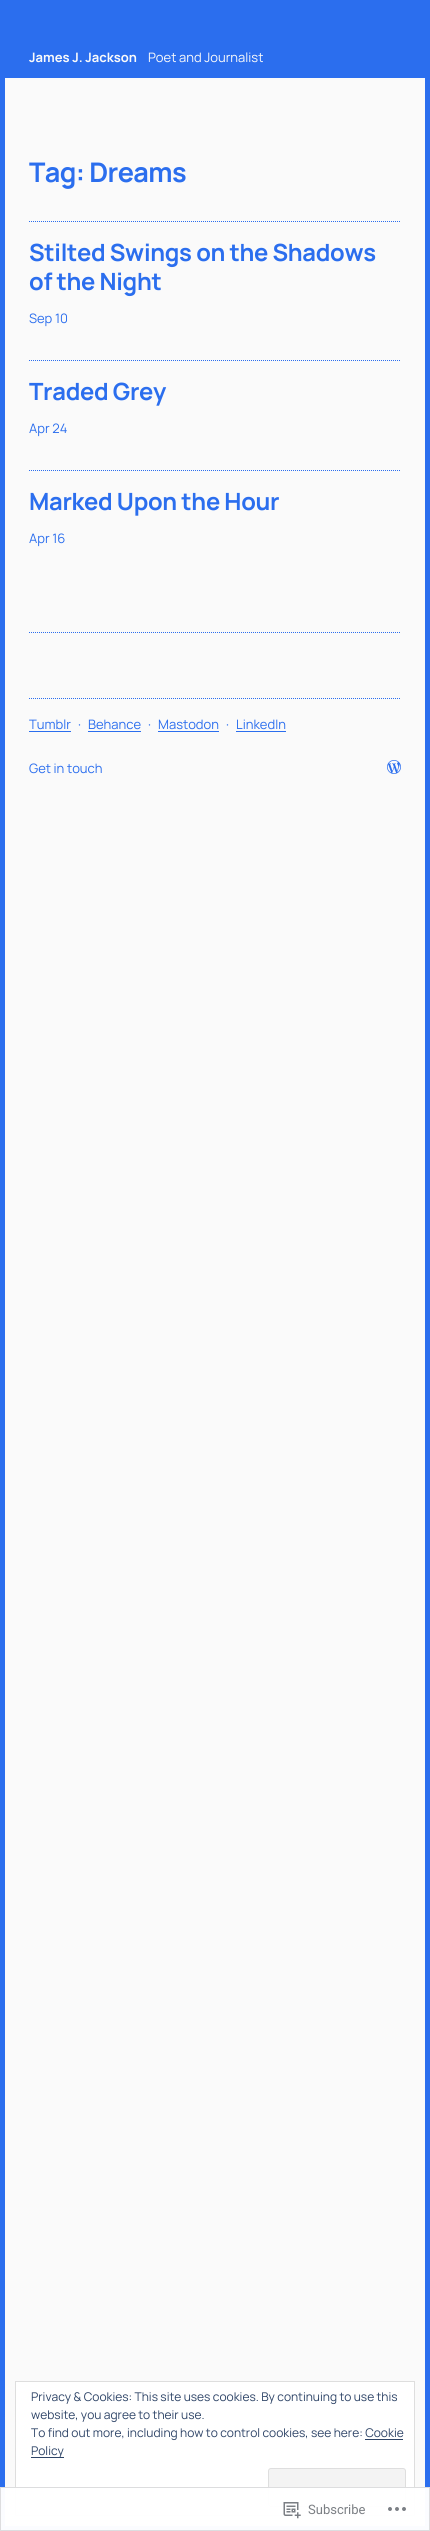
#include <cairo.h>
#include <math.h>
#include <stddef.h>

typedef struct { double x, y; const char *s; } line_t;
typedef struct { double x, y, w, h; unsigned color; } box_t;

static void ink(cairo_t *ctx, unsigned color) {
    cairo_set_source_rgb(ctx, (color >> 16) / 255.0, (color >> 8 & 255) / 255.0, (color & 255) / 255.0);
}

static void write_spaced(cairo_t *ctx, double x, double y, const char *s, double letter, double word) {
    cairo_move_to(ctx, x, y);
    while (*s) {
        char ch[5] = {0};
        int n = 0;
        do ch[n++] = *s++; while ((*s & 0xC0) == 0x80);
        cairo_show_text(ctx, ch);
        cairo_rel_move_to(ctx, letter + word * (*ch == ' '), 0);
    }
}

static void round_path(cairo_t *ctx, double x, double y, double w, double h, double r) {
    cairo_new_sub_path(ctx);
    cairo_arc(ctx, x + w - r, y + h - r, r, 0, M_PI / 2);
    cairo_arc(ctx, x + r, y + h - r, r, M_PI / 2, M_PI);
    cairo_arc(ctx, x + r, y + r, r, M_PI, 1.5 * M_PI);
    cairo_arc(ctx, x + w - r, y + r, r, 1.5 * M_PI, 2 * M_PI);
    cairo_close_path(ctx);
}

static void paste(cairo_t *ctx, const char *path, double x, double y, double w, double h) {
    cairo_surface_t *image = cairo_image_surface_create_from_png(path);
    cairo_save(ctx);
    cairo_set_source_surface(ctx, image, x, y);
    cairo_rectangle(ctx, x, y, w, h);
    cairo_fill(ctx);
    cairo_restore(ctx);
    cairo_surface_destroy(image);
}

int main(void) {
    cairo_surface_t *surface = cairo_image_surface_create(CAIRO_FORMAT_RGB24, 430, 2531);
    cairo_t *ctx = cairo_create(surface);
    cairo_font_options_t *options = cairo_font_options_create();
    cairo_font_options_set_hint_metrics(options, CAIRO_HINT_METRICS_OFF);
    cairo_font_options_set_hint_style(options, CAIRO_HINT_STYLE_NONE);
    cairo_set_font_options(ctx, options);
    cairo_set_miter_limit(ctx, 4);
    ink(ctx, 0xFAFAFA);
    cairo_paint(ctx);
    {
        static const box_t items[] = {
            {425, 0, 5, 2531, 0x2B6EEE},
            {0, 2526, 430, 5, 0x2B6EEE},
            {0, 0, 5, 2531, 0x2B6EEE},
            {5, 0, 420, 78, 0x2B6EEE},
        };
        for (size_t i = 0; i < sizeof items / sizeof *items; i++) {
            ink(ctx, items[i].color);
            cairo_rectangle(ctx, items[i].x, items[i].y, items[i].w, items[i].h);
            cairo_fill(ctx);
        }
    }
    cairo_select_font_face(ctx, "Manrope", CAIRO_FONT_SLANT_NORMAL, CAIRO_FONT_WEIGHT_BOLD);
    cairo_set_font_size(ctx, 13);
    ink(ctx, 0xFAFAFA);
    cairo_move_to(ctx, 29, 62);
    cairo_show_text(ctx, "James J. Jackson");
    cairo_select_font_face(ctx, "Manrope", CAIRO_FONT_SLANT_NORMAL, CAIRO_FONT_WEIGHT_NORMAL);
    cairo_move_to(ctx, 148, 62);
    cairo_show_text(ctx, "Poet and Journalist");
    cairo_select_font_face(ctx, "Manrope", CAIRO_FONT_SLANT_NORMAL, CAIRO_FONT_WEIGHT_BOLD);
    cairo_set_font_size(ctx, 27);
    ink(ctx, 0x2B6EEE);
    write_spaced(ctx, 29, 182, "Tag: Dreams", -0.6, 0);
    cairo_new_path(ctx);
    cairo_move_to(ctx, 29, 221.5);
    cairo_line_to(ctx, 401, 221.5);
    cairo_set_line_width(ctx, 1);
    cairo_set_dash(ctx, (double[]){1, 1}, 2, 0);
    cairo_stroke(ctx);
    cairo_set_font_size(ctx, 23.75);
    write_spaced(ctx, 29, 261, "Stilted Swings on the Shadows", -0.3, 0);
    write_spaced(ctx, 29, 290, "of the Night", -0.3, 0);
    cairo_select_font_face(ctx, "Manrope", CAIRO_FONT_SLANT_NORMAL, CAIRO_FONT_WEIGHT_NORMAL);
    cairo_set_font_size(ctx, 13);
    cairo_move_to(ctx, 29, 323);
    cairo_show_text(ctx, "Sep 10");
    cairo_new_path(ctx);
    cairo_move_to(ctx, 29, 360.5);
    cairo_line_to(ctx, 401, 360.5);
    cairo_stroke(ctx);
    cairo_select_font_face(ctx, "Manrope", CAIRO_FONT_SLANT_NORMAL, CAIRO_FONT_WEIGHT_BOLD);
    cairo_set_font_size(ctx, 23.75);
    write_spaced(ctx, 29, 400, "Traded Grey", -0.3, 0);
    cairo_select_font_face(ctx, "Manrope", CAIRO_FONT_SLANT_NORMAL, CAIRO_FONT_WEIGHT_NORMAL);
    cairo_set_font_size(ctx, 13);
    cairo_move_to(ctx, 29, 433);
    cairo_show_text(ctx, "Apr 24");
    cairo_new_path(ctx);
    cairo_move_to(ctx, 29, 470.5);
    cairo_line_to(ctx, 401, 470.5);
    cairo_stroke(ctx);
    cairo_select_font_face(ctx, "Manrope", CAIRO_FONT_SLANT_NORMAL, CAIRO_FONT_WEIGHT_BOLD);
    cairo_set_font_size(ctx, 23.75);
    write_spaced(ctx, 29, 510, "Marked Upon the Hour", -0.3, 0);
    cairo_select_font_face(ctx, "Manrope", CAIRO_FONT_SLANT_NORMAL, CAIRO_FONT_WEIGHT_NORMAL);
    cairo_set_font_size(ctx, 13);
    cairo_move_to(ctx, 29, 543);
    cairo_show_text(ctx, "Apr 16");
    cairo_new_path(ctx);
    cairo_move_to(ctx, 29, 632.5);
    cairo_line_to(ctx, 401, 632.5);
    cairo_stroke(ctx);
    cairo_new_path(ctx);
    cairo_move_to(ctx, 29, 698.5);
    cairo_line_to(ctx, 401, 698.5);
    cairo_stroke(ctx);
    cairo_move_to(ctx, 29, 729);
    cairo_show_text(ctx, "Tumblr");
    cairo_rectangle(ctx, 29, 731, 42, 1);
    cairo_fill(ctx);
    cairo_move_to(ctx, 78, 729);
    cairo_show_text(ctx, "·");
    cairo_move_to(ctx, 88, 729);
    cairo_show_text(ctx, "Behance");
    cairo_rectangle(ctx, 88, 731, 53, 1);
    cairo_fill(ctx);
    cairo_move_to(ctx, 148, 729);
    cairo_show_text(ctx, "·");
    cairo_move_to(ctx, 158, 729);
    cairo_show_text(ctx, "Mastodon");
    cairo_rectangle(ctx, 158, 731, 61, 1);
    cairo_fill(ctx);
    cairo_move_to(ctx, 226, 729);
    cairo_show_text(ctx, "·");
    cairo_move_to(ctx, 236, 729);
    cairo_show_text(ctx, "LinkedIn");
    cairo_rectangle(ctx, 236, 731, 50, 1);
    cairo_fill(ctx);
    cairo_move_to(ctx, 29, 773);
    cairo_show_text(ctx, "Get in touch");
    paste(ctx, "media/1.png", 387, 760, 14, 14);
    ink(ctx, 0xFFFFFF);
    cairo_rectangle(ctx, 15.5, 2381.5, 399, 134);
    cairo_fill_preserve(ctx);
    ink(ctx, 0xDEDEDE);
    cairo_set_dash(ctx, NULL, 0, 0);
    cairo_stroke(ctx);
    cairo_set_font_size(ctx, 12);
    ink(ctx, 0x2E4467);
    {
        static const line_t items[] = {
            {31, 2401, "Privacy & Cookies: This site uses cookies. By continuing to use this"},
            {31, 2419, "website, you agree to their use."},
            {31, 2437, "To find out more, including how to control cookies, see here: Cookie"},
        };
        for (size_t i = 0; i < sizeof items / sizeof *items; i++) {
            cairo_move_to(ctx, items[i].x, items[i].y);
            cairo_show_text(ctx, items[i].s);
        }
    }
    cairo_rectangle(ctx, 31, 2457, 33, 1);
    cairo_fill(ctx);
    cairo_move_to(ctx, 31, 2455);
    cairo_show_text(ctx, "Policy");
    cairo_rectangle(ctx, 365, 2439, 38, 1);
    cairo_fill(ctx);
    ink(ctx, 0xF3F3F3);
    round_path(ctx, 268.5, 2468.5, 137, 38, 2.5);
    cairo_fill_preserve(ctx);
    ink(ctx, 0xDEDEDE);
    cairo_stroke(ctx);
    cairo_set_source_rgba(ctx, 1, 1, 1, 0.98);
    cairo_rectangle(ctx, 0, 2487, 430, 44);
    cairo_fill(ctx);
    cairo_rectangle(ctx, 0.5, 2487.5, 429, 43);
    cairo_set_source_rgba(ctx, 0.863, 0.863, 0.871, 0.98);
    cairo_stroke(ctx);
    paste(ctx, "media/2.png", 283, 2502, 18, 17);
    cairo_select_font_face(ctx, "Roboto", CAIRO_FONT_SLANT_NORMAL, CAIRO_FONT_WEIGHT_NORMAL);
    cairo_set_font_size(ctx, 13);
    ink(ctx, 0x7B7F84);
    cairo_move_to(ctx, 308, 2514);
    cairo_show_text(ctx, "Subscribe");
    paste(ctx, "media/3.png", 388, 2507, 18, 4);
    cairo_surface_write_to_png(surface, "image.png");
    cairo_font_options_destroy(options);
    cairo_destroy(ctx);
    cairo_surface_destroy(surface);
    return 0;
}
